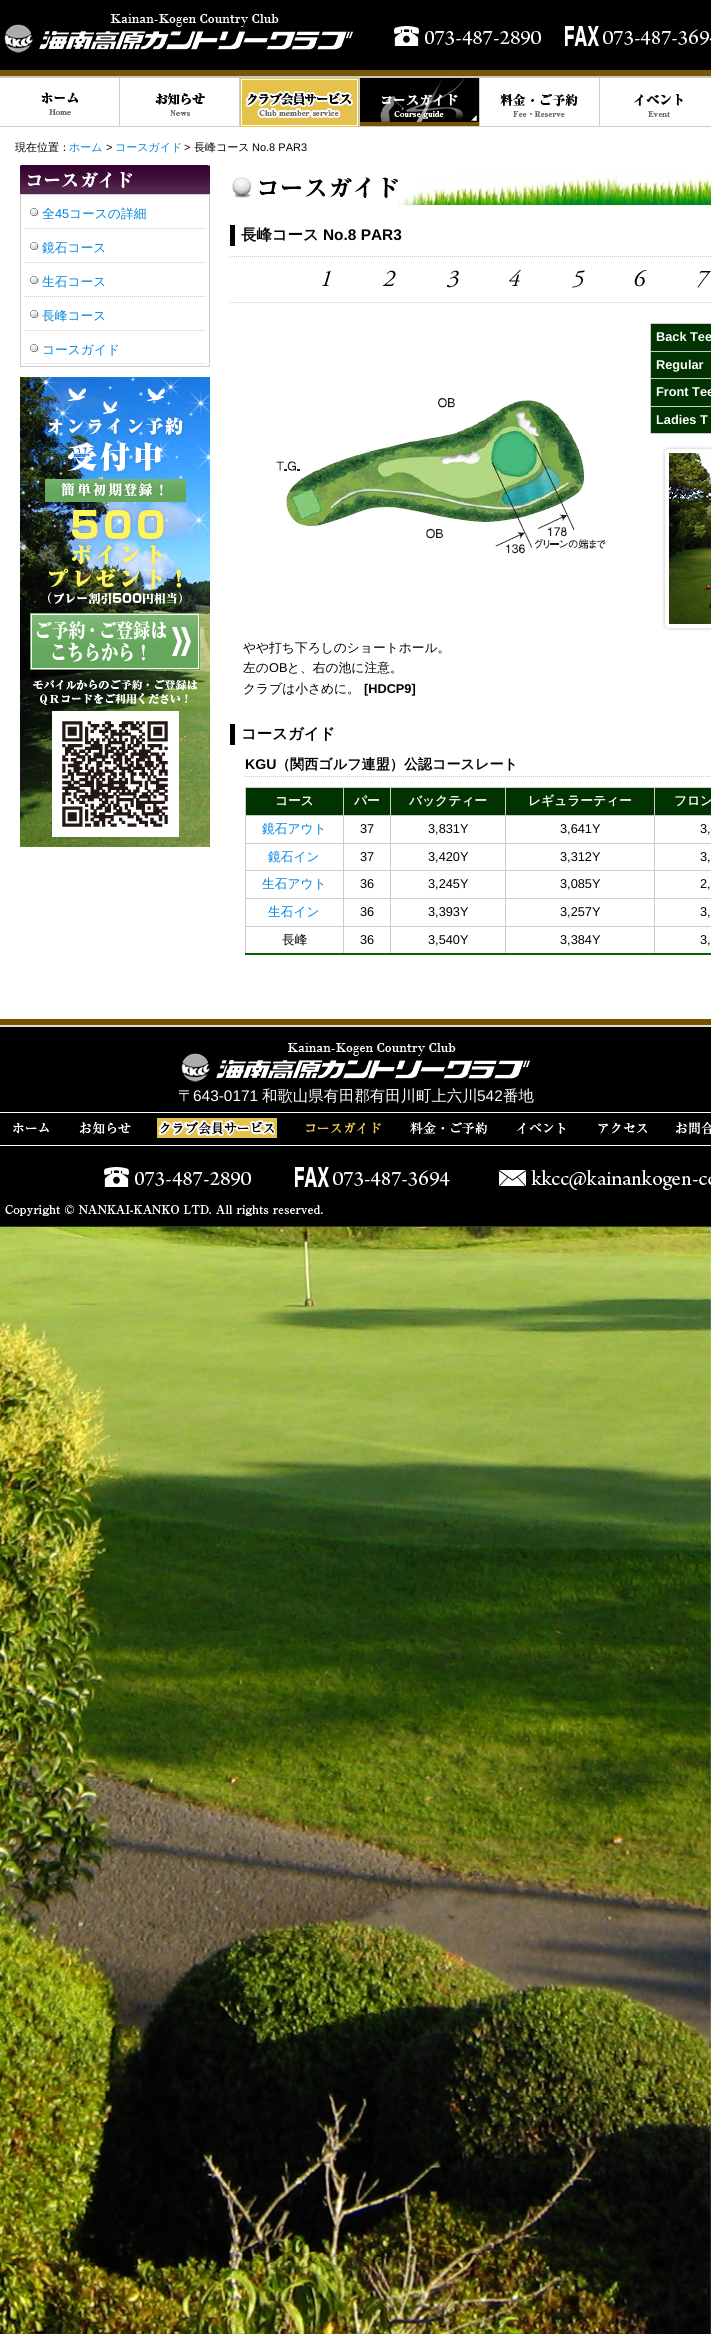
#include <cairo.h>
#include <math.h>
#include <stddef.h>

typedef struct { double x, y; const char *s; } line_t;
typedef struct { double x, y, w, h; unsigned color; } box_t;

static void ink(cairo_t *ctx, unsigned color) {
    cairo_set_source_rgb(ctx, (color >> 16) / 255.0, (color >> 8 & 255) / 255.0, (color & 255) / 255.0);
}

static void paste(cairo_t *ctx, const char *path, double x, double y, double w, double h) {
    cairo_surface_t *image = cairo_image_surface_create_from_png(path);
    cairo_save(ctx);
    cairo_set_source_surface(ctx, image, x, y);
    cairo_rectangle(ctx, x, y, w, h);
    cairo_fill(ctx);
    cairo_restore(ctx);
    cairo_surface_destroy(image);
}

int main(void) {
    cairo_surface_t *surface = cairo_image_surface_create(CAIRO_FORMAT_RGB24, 711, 2334);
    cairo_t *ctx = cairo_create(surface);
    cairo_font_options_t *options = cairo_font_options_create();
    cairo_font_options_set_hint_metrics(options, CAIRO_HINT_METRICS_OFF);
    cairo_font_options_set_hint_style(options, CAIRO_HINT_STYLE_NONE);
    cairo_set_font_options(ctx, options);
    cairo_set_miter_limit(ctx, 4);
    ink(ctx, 0xFFFFFF);
    cairo_paint(ctx);
    paste(ctx, "media/1.png", 0, 70, 711, 2264);
    paste(ctx, "media/2.png", 0, 70, 711, 8);
    paste(ctx, "media/3.png", 0, 0, 711, 78);
    paste(ctx, "media/4.png", 4, 14, 349, 39);
    paste(ctx, "media/5.png", 394, 26, 147, 20);
    paste(ctx, "media/6.png", 565, 26, 146, 20);
    paste(ctx, "media/7.png", 0, 78, 120, 49);
    paste(ctx, "media/8.png", 0, 78, 119, 48);
    paste(ctx, "media/9.png", 120, 78, 120, 49);
    paste(ctx, "media/10.png", 120, 78, 119, 48);
    paste(ctx, "media/11.png", 359, 78, 1, 49);
    paste(ctx, "media/12.png", 240, 78, 119, 49);
    paste(ctx, "media/13.png", 360, 78, 120, 49);
    paste(ctx, "media/14.png", 480, 78, 120, 49);
    paste(ctx, "media/15.png", 480, 78, 119, 48);
    paste(ctx, "media/16.png", 600, 126, 111, 1);
    paste(ctx, "media/17.png", 600, 78, 111, 48);
    ink(ctx, 0xFFFFFF);
    cairo_rectangle(ctx, 0, 127, 711, 892);
    cairo_fill(ctx);
    cairo_select_font_face(ctx, "WenQuanYi Zen Hei Medium", CAIRO_FONT_SLANT_NORMAL, CAIRO_FONT_WEIGHT_NORMAL);
    cairo_set_font_size(ctx, 11);
    ink(ctx, 0x000000);
    cairo_move_to(ctx, 15, 151);
    cairo_show_text(ctx, "現在位置：");
    ink(ctx, 0x0084E0);
    cairo_move_to(ctx, 69, 151);
    cairo_show_text(ctx, "ホーム");
    cairo_select_font_face(ctx, "Liberation Sans", CAIRO_FONT_SLANT_NORMAL, CAIRO_FONT_WEIGHT_NORMAL);
    ink(ctx, 0x000000);
    cairo_move_to(ctx, 106, 151);
    cairo_show_text(ctx, ">");
    cairo_select_font_face(ctx, "WenQuanYi Zen Hei Medium", CAIRO_FONT_SLANT_NORMAL, CAIRO_FONT_WEIGHT_NORMAL);
    ink(ctx, 0x0084E0);
    cairo_move_to(ctx, 115, 151);
    cairo_show_text(ctx, "コースガイド");
    cairo_select_font_face(ctx, "Liberation Sans", CAIRO_FONT_SLANT_NORMAL, CAIRO_FONT_WEIGHT_NORMAL);
    ink(ctx, 0x000000);
    cairo_move_to(ctx, 184, 151);
    cairo_show_text(ctx, ">");
    cairo_select_font_face(ctx, "WenQuanYi Zen Hei Medium", CAIRO_FONT_SLANT_NORMAL, CAIRO_FONT_WEIGHT_NORMAL);
    cairo_move_to(ctx, 194, 151);
    cairo_show_text(ctx, "長峰コース");
    cairo_select_font_face(ctx, "Liberation Sans", CAIRO_FONT_SLANT_NORMAL, CAIRO_FONT_WEIGHT_NORMAL);
    cairo_move_to(ctx, 252, 151);
    cairo_show_text(ctx, "No.8 PAR3");
    paste(ctx, "media/18.png", 20, 165, 190, 29);
    cairo_rectangle(ctx, 20.5, 194.5, 189, 172);
    ink(ctx, 0xCCCCCC);
    cairo_set_line_width(ctx, 1);
    cairo_stroke(ctx);
    paste(ctx, "media/19.png", 30, 208, 9, 8);
    cairo_new_path(ctx);
    cairo_move_to(ctx, 24, 228.5);
    cairo_line_to(ctx, 206, 228.5);
    cairo_set_dash(ctx, (double[]){1, 1}, 2, 0);
    cairo_stroke(ctx);
    cairo_select_font_face(ctx, "WenQuanYi Zen Hei Medium", CAIRO_FONT_SLANT_NORMAL, CAIRO_FONT_WEIGHT_NORMAL);
    cairo_set_font_size(ctx, 12.75);
    ink(ctx, 0x0084E0);
    cairo_move_to(ctx, 42, 218);
    cairo_show_text(ctx, "全");
    cairo_select_font_face(ctx, "Liberation Sans", CAIRO_FONT_SLANT_NORMAL, CAIRO_FONT_WEIGHT_NORMAL);
    cairo_move_to(ctx, 55, 218);
    cairo_show_text(ctx, "45");
    cairo_select_font_face(ctx, "WenQuanYi Zen Hei Medium", CAIRO_FONT_SLANT_NORMAL, CAIRO_FONT_WEIGHT_NORMAL);
    cairo_move_to(ctx, 69, 218);
    cairo_show_text(ctx, "コースの詳細");
    paste(ctx, "media/19.png", 30, 242, 9, 8);
    cairo_new_path(ctx);
    cairo_move_to(ctx, 24, 262.5);
    cairo_line_to(ctx, 206, 262.5);
    ink(ctx, 0xCCCCCC);
    cairo_stroke(ctx);
    ink(ctx, 0x0084E0);
    cairo_move_to(ctx, 42, 252);
    cairo_show_text(ctx, "鏡石コース");
    paste(ctx, "media/19.png", 30, 276, 9, 8);
    cairo_new_path(ctx);
    cairo_move_to(ctx, 24, 296.5);
    cairo_line_to(ctx, 206, 296.5);
    ink(ctx, 0xCCCCCC);
    cairo_stroke(ctx);
    ink(ctx, 0x0084E0);
    cairo_move_to(ctx, 42, 286);
    cairo_show_text(ctx, "生石コース");
    paste(ctx, "media/19.png", 30, 310, 9, 8);
    cairo_new_path(ctx);
    cairo_move_to(ctx, 24, 330.5);
    cairo_line_to(ctx, 206, 330.5);
    ink(ctx, 0xCCCCCC);
    cairo_stroke(ctx);
    ink(ctx, 0x0084E0);
    cairo_move_to(ctx, 42, 320);
    cairo_show_text(ctx, "長峰コース");
    paste(ctx, "media/19.png", 30, 344, 9, 8);
    cairo_new_path(ctx);
    cairo_move_to(ctx, 24, 363.5);
    cairo_line_to(ctx, 206, 363.5);
    ink(ctx, 0xCCCCCC);
    cairo_stroke(ctx);
    ink(ctx, 0x0084E0);
    cairo_move_to(ctx, 42, 354);
    cairo_show_text(ctx, "コースガイド");
    paste(ctx, "media/20.png", 20, 377, 190, 470);
    paste(ctx, "media/21.png", 232, 167, 479, 38);
    ink(ctx, 0x000000);
    cairo_rectangle(ctx, 230, 225, 5, 21);
    cairo_fill(ctx);
    cairo_select_font_face(ctx, "WenQuanYi Zen Hei", CAIRO_FONT_SLANT_NORMAL, CAIRO_FONT_WEIGHT_BOLD);
    cairo_set_font_size(ctx, 15.4);
    cairo_move_to(ctx, 241, 240);
    cairo_show_text(ctx, "長峰コース");
    cairo_select_font_face(ctx, "Liberation Sans", CAIRO_FONT_SLANT_NORMAL, CAIRO_FONT_WEIGHT_BOLD);
    cairo_move_to(ctx, 323, 240);
    cairo_show_text(ctx, "No.8 PAR3");
    cairo_new_path(ctx);
    cairo_move_to(ctx, 230, 256.5);
    cairo_line_to(ctx, 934, 256.5);
    ink(ctx, 0xCCCCCC);
    cairo_stroke(ctx);
    cairo_new_path(ctx);
    cairo_move_to(ctx, 230, 302.5);
    cairo_line_to(ctx, 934, 302.5);
    cairo_stroke(ctx);
    paste(ctx, "media/22.png", 310, 270, 33, 4);
    paste(ctx, "media/23.png", 310, 274, 33, 16);
    paste(ctx, "media/24.png", 373, 270, 33, 4);
    paste(ctx, "media/25.png", 373, 274, 33, 16);
    paste(ctx, "media/26.png", 436, 270, 33, 4);
    paste(ctx, "media/27.png", 436, 274, 33, 16);
    paste(ctx, "media/28.png", 499, 270, 33, 4);
    paste(ctx, "media/29.png", 499, 274, 33, 16);
    paste(ctx, "media/30.png", 562, 270, 33, 4);
    paste(ctx, "media/31.png", 562, 274, 33, 16);
    paste(ctx, "media/32.png", 625, 270, 33, 4);
    paste(ctx, "media/33.png", 625, 274, 33, 16);
    paste(ctx, "media/34.png", 688, 271, 23, 3);
    paste(ctx, "media/35.png", 688, 274, 23, 16);
    {
        static const box_t items[] = {
            {650, 323, 61, 1, 0xCCCCCC},
            {650, 433, 61, 1, 0xCCCCCC},
            {650, 323, 1, 111, 0xCCCCCC},
            {651, 324, 60, 27, 0x003300},
        };
        for (size_t i = 0; i < sizeof items / sizeof *items; i++) {
            ink(ctx, items[i].color);
            cairo_rectangle(ctx, items[i].x, items[i].y, items[i].w, items[i].h);
            cairo_fill(ctx);
        }
    }
    cairo_set_font_size(ctx, 12.75);
    ink(ctx, 0xFFFFFF);
    cairo_move_to(ctx, 656, 341);
    cairo_show_text(ctx, "Back Tee");
    ink(ctx, 0x003300);
    cairo_rectangle(ctx, 651, 352, 60, 26);
    cairo_fill(ctx);
    ink(ctx, 0xCCCCCC);
    cairo_rectangle(ctx, 650, 351, 61, 1);
    cairo_fill(ctx);
    ink(ctx, 0xFFFFFF);
    cairo_move_to(ctx, 656, 369);
    cairo_show_text(ctx, "Regular");
    ink(ctx, 0x003300);
    cairo_rectangle(ctx, 651, 379, 60, 27);
    cairo_fill(ctx);
    ink(ctx, 0xCCCCCC);
    cairo_rectangle(ctx, 650, 378, 61, 1);
    cairo_fill(ctx);
    ink(ctx, 0xFFFFFF);
    cairo_move_to(ctx, 656, 396);
    cairo_show_text(ctx, "Front Tee");
    ink(ctx, 0x003300);
    cairo_rectangle(ctx, 651, 407, 60, 26);
    cairo_fill(ctx);
    ink(ctx, 0xCCCCCC);
    cairo_rectangle(ctx, 650, 406, 61, 1);
    cairo_fill(ctx);
    ink(ctx, 0xFFFFFF);
    cairo_move_to(ctx, 656, 424);
    cairo_show_text(ctx, "Ladies T");
    paste(ctx, "media/36.png", 662, 446, 49, 185);
    paste(ctx, "media/37.png", 276, 398, 330, 156);
    cairo_select_font_face(ctx, "WenQuanYi Zen Hei Medium", CAIRO_FONT_SLANT_NORMAL, CAIRO_FONT_WEIGHT_NORMAL);
    ink(ctx, 0x000000);
    cairo_move_to(ctx, 243, 652);
    cairo_show_text(ctx, "やや打ち下ろしのショートホール。");
    cairo_move_to(ctx, 243, 672);
    cairo_show_text(ctx, "左の");
    cairo_select_font_face(ctx, "Liberation Sans", CAIRO_FONT_SLANT_NORMAL, CAIRO_FONT_WEIGHT_NORMAL);
    cairo_move_to(ctx, 269, 672);
    cairo_show_text(ctx, "OB");
    cairo_select_font_face(ctx, "WenQuanYi Zen Hei Medium", CAIRO_FONT_SLANT_NORMAL, CAIRO_FONT_WEIGHT_NORMAL);
    cairo_move_to(ctx, 287, 672);
    cairo_show_text(ctx, "と、右の池に注意。");
    cairo_move_to(ctx, 243, 693);
    cairo_show_text(ctx, "クラブは小さめに。");
    cairo_select_font_face(ctx, "Liberation Sans", CAIRO_FONT_SLANT_NORMAL, CAIRO_FONT_WEIGHT_BOLD);
    cairo_move_to(ctx, 364, 693);
    cairo_show_text(ctx, "[HDCP9]");
    cairo_rectangle(ctx, 230, 724, 5, 21);
    cairo_fill(ctx);
    cairo_select_font_face(ctx, "WenQuanYi Zen Hei", CAIRO_FONT_SLANT_NORMAL, CAIRO_FONT_WEIGHT_BOLD);
    cairo_set_font_size(ctx, 15.4);
    cairo_move_to(ctx, 241, 739);
    cairo_show_text(ctx, "コースガイド");
    cairo_new_path(ctx);
    cairo_move_to(ctx, 245, 776.5);
    cairo_line_to(ctx, 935, 776.5);
    ink(ctx, 0xCCCCCC);
    cairo_stroke(ctx);
    cairo_select_font_face(ctx, "Liberation Sans", CAIRO_FONT_SLANT_NORMAL, CAIRO_FONT_WEIGHT_BOLD);
    cairo_set_font_size(ctx, 14.1);
    ink(ctx, 0x000000);
    cairo_move_to(ctx, 245, 769);
    cairo_show_text(ctx, "KGU");
    cairo_select_font_face(ctx, "WenQuanYi Zen Hei", CAIRO_FONT_SLANT_NORMAL, CAIRO_FONT_WEIGHT_BOLD);
    cairo_move_to(ctx, 276, 769);
    cairo_show_text(ctx, "（関西ゴルフ連盟）公認コースレート");
    {
        static const box_t items[] = {
            {245, 787, 466, 1, 0xCCCCCC},
            {245, 787, 1, 168, 0xCCCCCC},
            {654, 926, 57, 1, 0xCCCCCC},
            {654, 926, 1, 29, 0xCCCCCC},
            {505, 926, 150, 1, 0xCCCCCC},
            {505, 926, 1, 29, 0xCCCCCC},
            {390, 926, 116, 1, 0xCCCCCC},
            {390, 926, 1, 29, 0xCCCCCC},
            {343, 926, 48, 1, 0xCCCCCC},
            {343, 926, 1, 29, 0xCCCCCC},
            {245, 953, 466, 2, 0x006600},
            {246, 788, 97, 27, 0x003300},
        };
        for (size_t i = 0; i < sizeof items / sizeof *items; i++) {
            ink(ctx, items[i].color);
            cairo_rectangle(ctx, items[i].x, items[i].y, items[i].w, items[i].h);
            cairo_fill(ctx);
        }
    }
    cairo_set_font_size(ctx, 12.75);
    ink(ctx, 0xFFFFFF);
    cairo_move_to(ctx, 275, 805);
    cairo_show_text(ctx, "コース");
    {
        static const box_t items[] = {
            {344, 788, 46, 27, 0x003300},
            {654, 815, 57, 1, 0xCCCCCC},
            {654, 843, 57, 1, 0xCCCCCC},
            {654, 870, 57, 1, 0xCCCCCC},
            {654, 898, 57, 1, 0xCCCCCC},
            {654, 898, 1, 29, 0xCCCCCC},
            {505, 898, 150, 1, 0xCCCCCC},
            {654, 870, 1, 29, 0xCCCCCC},
            {505, 870, 150, 1, 0xCCCCCC},
            {654, 843, 1, 28, 0xCCCCCC},
            {505, 843, 150, 1, 0xCCCCCC},
            {654, 815, 1, 29, 0xCCCCCC},
            {505, 815, 150, 1, 0xCCCCCC},
            {505, 898, 1, 29, 0xCCCCCC},
            {390, 898, 116, 1, 0xCCCCCC},
            {505, 870, 1, 29, 0xCCCCCC},
            {390, 870, 116, 1, 0xCCCCCC},
            {505, 843, 1, 28, 0xCCCCCC},
            {390, 843, 116, 1, 0xCCCCCC},
            {505, 815, 1, 29, 0xCCCCCC},
            {390, 815, 116, 1, 0xCCCCCC},
            {390, 898, 1, 29, 0xCCCCCC},
            {343, 898, 48, 1, 0xCCCCCC},
            {390, 870, 1, 29, 0xCCCCCC},
            {343, 870, 48, 1, 0xCCCCCC},
            {390, 843, 1, 28, 0xCCCCCC},
            {343, 843, 48, 1, 0xCCCCCC},
            {390, 815, 1, 29, 0xCCCCCC},
            {343, 815, 48, 1, 0xCCCCCC},
            {245, 926, 99, 1, 0xCCCCCC},
            {343, 898, 1, 29, 0xCCCCCC},
            {245, 898, 99, 1, 0xCCCCCC},
            {343, 870, 1, 29, 0xCCCCCC},
            {245, 870, 99, 1, 0xCCCCCC},
            {343, 843, 1, 28, 0xCCCCCC},
            {245, 843, 99, 1, 0xCCCCCC},
            {343, 815, 1, 29, 0xCCCCCC},
            {245, 815, 99, 1, 0xCCCCCC},
            {343, 787, 1, 29, 0xCCCCCC},
        };
        for (size_t i = 0; i < sizeof items / sizeof *items; i++) {
            ink(ctx, items[i].color);
            cairo_rectangle(ctx, items[i].x, items[i].y, items[i].w, items[i].h);
            cairo_fill(ctx);
        }
    }
    ink(ctx, 0xFFFFFF);
    cairo_move_to(ctx, 354, 805);
    cairo_show_text(ctx, "パー");
    ink(ctx, 0x003300);
    cairo_rectangle(ctx, 391, 788, 114, 27);
    cairo_fill(ctx);
    ink(ctx, 0xCCCCCC);
    cairo_rectangle(ctx, 390, 787, 1, 29);
    cairo_fill(ctx);
    ink(ctx, 0xFFFFFF);
    cairo_move_to(ctx, 409, 805);
    cairo_show_text(ctx, "バックティー");
    ink(ctx, 0x003300);
    cairo_rectangle(ctx, 506, 788, 148, 27);
    cairo_fill(ctx);
    ink(ctx, 0xCCCCCC);
    cairo_rectangle(ctx, 505, 787, 1, 29);
    cairo_fill(ctx);
    ink(ctx, 0xFFFFFF);
    cairo_move_to(ctx, 528, 805);
    cairo_show_text(ctx, "レギュラーティー");
    ink(ctx, 0x003300);
    cairo_rectangle(ctx, 655, 788, 56, 27);
    cairo_fill(ctx);
    ink(ctx, 0xCCCCCC);
    cairo_rectangle(ctx, 654, 787, 1, 29);
    cairo_fill(ctx);
    ink(ctx, 0xFFFFFF);
    cairo_move_to(ctx, 674, 805);
    cairo_show_text(ctx, "フロン");
    cairo_select_font_face(ctx, "WenQuanYi Zen Hei Medium", CAIRO_FONT_SLANT_NORMAL, CAIRO_FONT_WEIGHT_NORMAL);
    ink(ctx, 0x0084E0);
    cairo_move_to(ctx, 262, 833);
    cairo_show_text(ctx, "鏡石アウト");
    cairo_select_font_face(ctx, "Liberation Sans", CAIRO_FONT_SLANT_NORMAL, CAIRO_FONT_WEIGHT_NORMAL);
    ink(ctx, 0x000000);
    {
        static const line_t items[] = {
            {360, 833, "37"},
            {428, 833, "3,831Y"},
            {560, 833, "3,641Y"},
            {700, 833, "3,"},
        };
        for (size_t i = 0; i < sizeof items / sizeof *items; i++) {
            cairo_move_to(ctx, items[i].x, items[i].y);
            cairo_show_text(ctx, items[i].s);
        }
    }
    cairo_select_font_face(ctx, "WenQuanYi Zen Hei Medium", CAIRO_FONT_SLANT_NORMAL, CAIRO_FONT_WEIGHT_NORMAL);
    ink(ctx, 0x0084E0);
    cairo_move_to(ctx, 268, 861);
    cairo_show_text(ctx, "鏡石イン");
    cairo_select_font_face(ctx, "Liberation Sans", CAIRO_FONT_SLANT_NORMAL, CAIRO_FONT_WEIGHT_NORMAL);
    ink(ctx, 0x000000);
    {
        static const line_t items[] = {
            {360, 861, "37"},
            {428, 861, "3,420Y"},
            {560, 861, "3,312Y"},
            {700, 861, "3,"},
        };
        for (size_t i = 0; i < sizeof items / sizeof *items; i++) {
            cairo_move_to(ctx, items[i].x, items[i].y);
            cairo_show_text(ctx, items[i].s);
        }
    }
    cairo_select_font_face(ctx, "WenQuanYi Zen Hei Medium", CAIRO_FONT_SLANT_NORMAL, CAIRO_FONT_WEIGHT_NORMAL);
    ink(ctx, 0x0084E0);
    cairo_move_to(ctx, 262, 888);
    cairo_show_text(ctx, "生石アウト");
    cairo_select_font_face(ctx, "Liberation Sans", CAIRO_FONT_SLANT_NORMAL, CAIRO_FONT_WEIGHT_NORMAL);
    ink(ctx, 0x000000);
    {
        static const line_t items[] = {
            {360, 888, "36"},
            {428, 888, "3,245Y"},
            {560, 888, "3,085Y"},
            {700, 888, "2,"},
        };
        for (size_t i = 0; i < sizeof items / sizeof *items; i++) {
            cairo_move_to(ctx, items[i].x, items[i].y);
            cairo_show_text(ctx, items[i].s);
        }
    }
    cairo_select_font_face(ctx, "WenQuanYi Zen Hei Medium", CAIRO_FONT_SLANT_NORMAL, CAIRO_FONT_WEIGHT_NORMAL);
    ink(ctx, 0x0084E0);
    cairo_move_to(ctx, 268, 916);
    cairo_show_text(ctx, "生石イン");
    cairo_select_font_face(ctx, "Liberation Sans", CAIRO_FONT_SLANT_NORMAL, CAIRO_FONT_WEIGHT_NORMAL);
    ink(ctx, 0x000000);
    {
        static const line_t items[] = {
            {360, 916, "36"},
            {428, 916, "3,393Y"},
            {560, 916, "3,257Y"},
            {700, 916, "3,"},
        };
        for (size_t i = 0; i < sizeof items / sizeof *items; i++) {
            cairo_move_to(ctx, items[i].x, items[i].y);
            cairo_show_text(ctx, items[i].s);
        }
    }
    cairo_select_font_face(ctx, "WenQuanYi Zen Hei Medium", CAIRO_FONT_SLANT_NORMAL, CAIRO_FONT_WEIGHT_NORMAL);
    cairo_move_to(ctx, 282, 944);
    cairo_show_text(ctx, "長峰");
    cairo_select_font_face(ctx, "Liberation Sans", CAIRO_FONT_SLANT_NORMAL, CAIRO_FONT_WEIGHT_NORMAL);
    {
        static const line_t items[] = {
            {360, 944, "36"},
            {428, 944, "3,540Y"},
            {560, 944, "3,384Y"},
            {700, 944, "3,"},
        };
        for (size_t i = 0; i < sizeof items / sizeof *items; i++) {
            cairo_move_to(ctx, items[i].x, items[i].y);
            cairo_show_text(ctx, items[i].s);
        }
    }
    paste(ctx, "media/38.png", 0, 1019, 711, 208);
    paste(ctx, "media/4.png", 181, 1043, 349, 39);
    cairo_select_font_face(ctx, "WenQuanYi Zen Hei Medium", CAIRO_FONT_SLANT_NORMAL, CAIRO_FONT_WEIGHT_NORMAL);
    cairo_set_font_size(ctx, 15.4);
    ink(ctx, 0xFFFFFF);
    cairo_move_to(ctx, 178, 1101);
    cairo_show_text(ctx, "〒");
    cairo_select_font_face(ctx, "Liberation Sans", CAIRO_FONT_SLANT_NORMAL, CAIRO_FONT_WEIGHT_NORMAL);
    cairo_move_to(ctx, 193, 1101);
    cairo_show_text(ctx, "643-0171");
    cairo_select_font_face(ctx, "WenQuanYi Zen Hei Medium", CAIRO_FONT_SLANT_NORMAL, CAIRO_FONT_WEIGHT_NORMAL);
    cairo_move_to(ctx, 262, 1101);
    cairo_show_text(ctx, "和歌山県有田郡有田川町上六川");
    cairo_select_font_face(ctx, "Liberation Sans", CAIRO_FONT_SLANT_NORMAL, CAIRO_FONT_WEIGHT_NORMAL);
    cairo_move_to(ctx, 477, 1101);
    cairo_show_text(ctx, "542");
    cairo_select_font_face(ctx, "WenQuanYi Zen Hei Medium", CAIRO_FONT_SLANT_NORMAL, CAIRO_FONT_WEIGHT_NORMAL);
    cairo_move_to(ctx, 503, 1101);
    cairo_show_text(ctx, "番地");
    cairo_rectangle(ctx, 0, 1112, 711, 1);
    cairo_fill(ctx);
    cairo_rectangle(ctx, 0, 1145, 711, 1);
    cairo_fill(ctx);
    paste(ctx, "media/39.png", 13, 1122, 36, 12);
    paste(ctx, "media/40.png", 79, 1121, 52, 13);
    paste(ctx, "media/41.png", 157, 1118, 120, 20);
    paste(ctx, "media/42.png", 306, 1122, 75, 12);
    paste(ctx, "media/43.png", 410, 1121, 77, 13);
    paste(ctx, "media/44.png", 517, 1122, 48, 12);
    paste(ctx, "media/45.png", 598, 1123, 49, 11);
    paste(ctx, "media/46.png", 675, 1121, 36, 14);
    paste(ctx, "media/5.png", 104, 1167, 147, 20);
    paste(ctx, "media/47.png", 295, 1167, 155, 20);
    paste(ctx, "media/48.png", 499, 1170, 212, 20);
    paste(ctx, "media/49.png", 5, 1205, 318, 11);
    cairo_surface_write_to_png(surface, "image.png");
    cairo_font_options_destroy(options);
    cairo_destroy(ctx);
    cairo_surface_destroy(surface);
    return 0;
}
